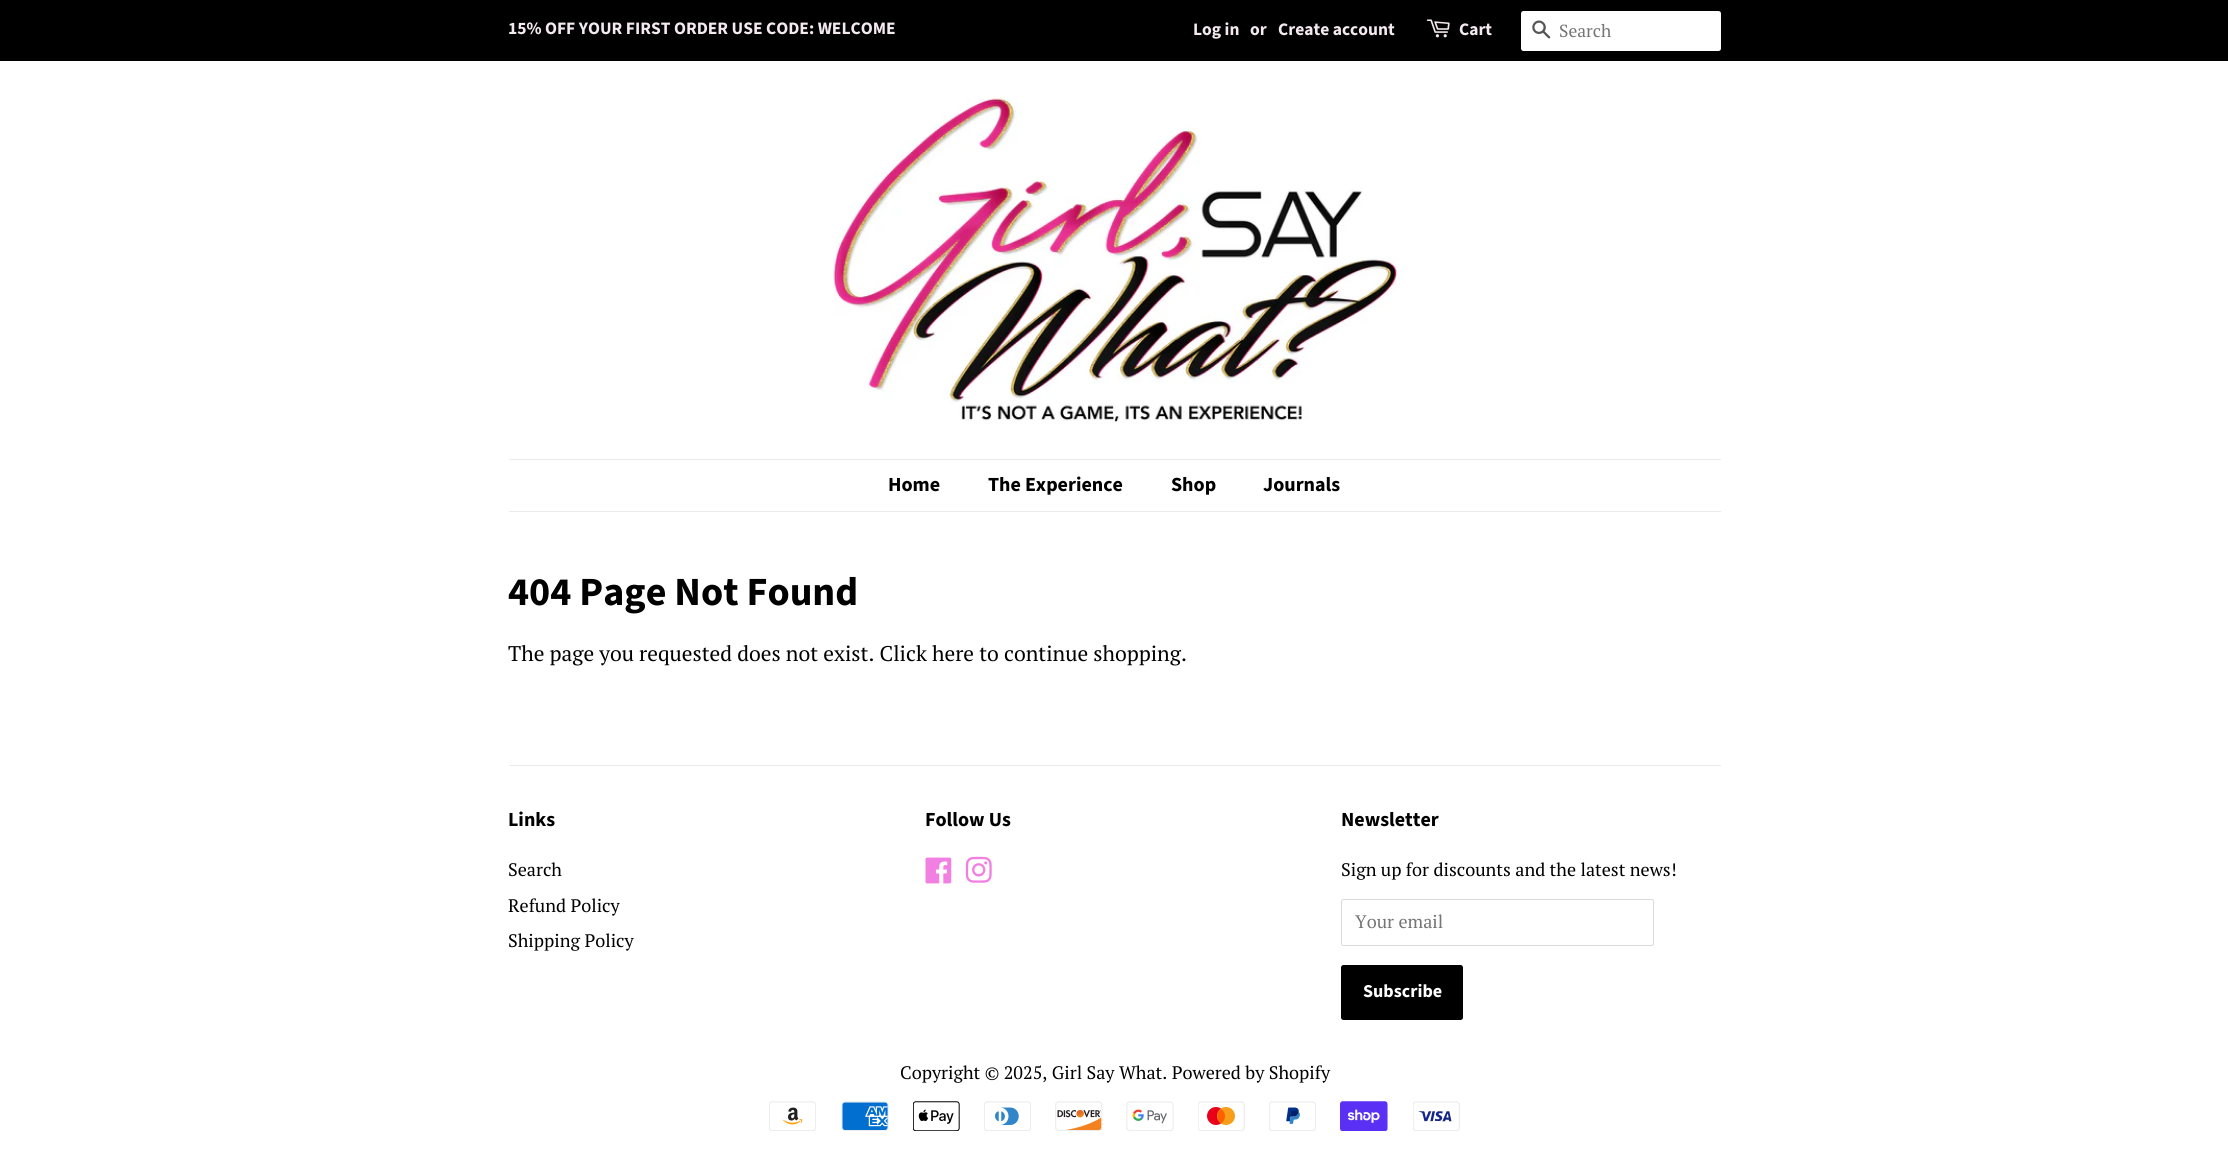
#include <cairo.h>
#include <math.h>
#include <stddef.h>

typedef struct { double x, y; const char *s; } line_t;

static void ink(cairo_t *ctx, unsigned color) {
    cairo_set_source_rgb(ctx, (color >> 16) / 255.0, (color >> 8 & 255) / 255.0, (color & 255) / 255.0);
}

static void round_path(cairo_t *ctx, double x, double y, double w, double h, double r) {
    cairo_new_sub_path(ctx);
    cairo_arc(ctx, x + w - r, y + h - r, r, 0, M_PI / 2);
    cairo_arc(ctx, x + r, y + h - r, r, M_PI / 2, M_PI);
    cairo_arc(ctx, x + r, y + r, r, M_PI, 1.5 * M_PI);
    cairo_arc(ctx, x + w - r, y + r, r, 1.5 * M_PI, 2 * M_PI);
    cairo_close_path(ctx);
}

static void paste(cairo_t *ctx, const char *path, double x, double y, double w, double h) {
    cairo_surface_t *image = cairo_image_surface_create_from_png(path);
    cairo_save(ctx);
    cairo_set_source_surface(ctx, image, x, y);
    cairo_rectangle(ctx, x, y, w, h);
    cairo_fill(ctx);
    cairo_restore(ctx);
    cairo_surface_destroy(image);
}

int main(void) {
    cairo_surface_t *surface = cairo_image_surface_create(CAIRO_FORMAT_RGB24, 2228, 1156);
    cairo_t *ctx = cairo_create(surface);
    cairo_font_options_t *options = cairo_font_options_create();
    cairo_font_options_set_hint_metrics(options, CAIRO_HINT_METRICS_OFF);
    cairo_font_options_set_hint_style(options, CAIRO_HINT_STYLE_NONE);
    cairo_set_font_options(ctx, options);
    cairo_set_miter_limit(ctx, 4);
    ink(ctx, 0xFFFFFF);
    cairo_paint(ctx);
    ink(ctx, 0x000000);
    cairo_rectangle(ctx, 0, 0, 2228, 61);
    cairo_fill(ctx);
    cairo_select_font_face(ctx, "Source Sans Pro", CAIRO_FONT_SLANT_NORMAL, CAIRO_FONT_WEIGHT_BOLD);
    cairo_set_font_size(ctx, 17.5);
    ink(ctx, 0xF3E9EF);
    {
        static const line_t items[] = {
            {508, 34, "15% OFF YOUR FIRST ORDER USE CODE: WELCOME"},
            {1193, 35, "Log in"},
            {1250, 35, "or"},
            {1278, 35, "Create account"},
        };
        for (size_t i = 0; i < sizeof items / sizeof *items; i++) {
            cairo_move_to(ctx, items[i].x, items[i].y);
            cairo_show_text(ctx, items[i].s);
        }
    }
    paste(ctx, "media/1.png", 1426, 19, 24, 19);
    cairo_move_to(ctx, 1459, 35);
    cairo_show_text(ctx, "Cart");
    ink(ctx, 0xFFFFFF);
    round_path(ctx, 1521, 11, 200, 40, 2.5);
    cairo_fill(ctx);
    paste(ctx, "media/2.png", 1532, 20, 19, 19);
    cairo_select_font_face(ctx, "PT Serif", CAIRO_FONT_SLANT_NORMAL, CAIRO_FONT_WEIGHT_NORMAL);
    ink(ctx, 0x757575);
    cairo_move_to(ctx, 1559, 37);
    cairo_show_text(ctx, "Search");
    paste(ctx, "media/3.png", 833, 98, 564, 324);
    ink(ctx, 0xEBEBEB);
    cairo_rectangle(ctx, 509, 459, 1212, 1);
    cairo_fill(ctx);
    cairo_rectangle(ctx, 509, 511, 1212, 1);
    cairo_fill(ctx);
    cairo_select_font_face(ctx, "Source Sans Pro", CAIRO_FONT_SLANT_NORMAL, CAIRO_FONT_WEIGHT_BOLD);
    cairo_set_font_size(ctx, 20);
    ink(ctx, 0x000000);
    {
        static const line_t items[] = {
            {888, 491, "Home"},
            {988, 491, "The Experience"},
            {1171, 491, "Shop"},
            {1263, 491, "Journals"},
        };
        for (size_t i = 0; i < sizeof items / sizeof *items; i++) {
            cairo_move_to(ctx, items[i].x, items[i].y);
            cairo_show_text(ctx, items[i].s);
        }
    }
    cairo_set_font_size(ctx, 40);
    cairo_move_to(ctx, 508, 605);
    cairo_show_text(ctx, "404 Page Not Found");
    cairo_select_font_face(ctx, "PT Serif", CAIRO_FONT_SLANT_NORMAL, CAIRO_FONT_WEIGHT_NORMAL);
    cairo_set_font_size(ctx, 21.25);
    cairo_move_to(ctx, 508, 661);
    cairo_show_text(ctx, "The page you requested does not exist. Click here to continue shopping.");
    ink(ctx, 0xEBEBEB);
    cairo_rectangle(ctx, 509, 765, 1212, 1);
    cairo_fill(ctx);
    cairo_select_font_face(ctx, "Source Sans Pro", CAIRO_FONT_SLANT_NORMAL, CAIRO_FONT_WEIGHT_BOLD);
    cairo_set_font_size(ctx, 20);
    ink(ctx, 0x000000);
    cairo_move_to(ctx, 508, 826);
    cairo_show_text(ctx, "Links");
    cairo_select_font_face(ctx, "PT Serif", CAIRO_FONT_SLANT_NORMAL, CAIRO_FONT_WEIGHT_NORMAL);
    cairo_set_font_size(ctx, 18.1);
    {
        static const line_t items[] = {
            {508, 876, "Search"},
            {508, 912, "Refund Policy"},
            {508, 947, "Shipping Policy"},
        };
        for (size_t i = 0; i < sizeof items / sizeof *items; i++) {
            cairo_move_to(ctx, items[i].x, items[i].y);
            cairo_show_text(ctx, items[i].s);
        }
    }
    cairo_select_font_face(ctx, "Source Sans Pro", CAIRO_FONT_SLANT_NORMAL, CAIRO_FONT_WEIGHT_BOLD);
    cairo_set_font_size(ctx, 20);
    cairo_move_to(ctx, 925, 826);
    cairo_show_text(ctx, "Follow Us");
    paste(ctx, "media/4.png", 925, 857, 27, 27);
    paste(ctx, "media/5.png", 965, 856, 27, 27);
    cairo_move_to(ctx, 1341, 826);
    cairo_show_text(ctx, "Newsletter");
    cairo_select_font_face(ctx, "PT Serif", CAIRO_FONT_SLANT_NORMAL, CAIRO_FONT_WEIGHT_NORMAL);
    cairo_set_font_size(ctx, 18.1);
    cairo_move_to(ctx, 1341, 876);
    cairo_show_text(ctx, "Sign up for discounts and the latest news!");
    round_path(ctx, 1341.5, 899.5, 312, 46, 2);
    ink(ctx, 0xD9D9D9);
    cairo_set_line_width(ctx, 1);
    cairo_stroke(ctx);
    ink(ctx, 0x757575);
    cairo_move_to(ctx, 1355, 928);
    cairo_show_text(ctx, "Your email");
    ink(ctx, 0x000000);
    round_path(ctx, 1341, 965, 122, 55, 2.5);
    cairo_fill(ctx);
    cairo_select_font_face(ctx, "Source Sans Pro", CAIRO_FONT_SLANT_NORMAL, CAIRO_FONT_WEIGHT_BOLD);
    ink(ctx, 0xFFFFFF);
    cairo_move_to(ctx, 1363, 997);
    cairo_show_text(ctx, "Subscribe");
    cairo_select_font_face(ctx, "PT Serif", CAIRO_FONT_SLANT_NORMAL, CAIRO_FONT_WEIGHT_NORMAL);
    ink(ctx, 0x000000);
    cairo_move_to(ctx, 900, 1079);
    cairo_show_text(ctx, "Copyright © 2025, Girl Say What. Powered by Shopify");
    paste(ctx, "media/6.png", 769, 1101, 47, 30);
    paste(ctx, "media/7.png", 841, 1101, 48, 30);
    paste(ctx, "media/8.png", 913, 1101, 47, 30);
    paste(ctx, "media/9.png", 984, 1101, 47, 30);
    paste(ctx, "media/10.png", 1055, 1101, 48, 30);
    paste(ctx, "media/11.png", 1126, 1101, 48, 30);
    paste(ctx, "media/12.png", 1198, 1101, 47, 30);
    paste(ctx, "media/13.png", 1269, 1101, 47, 30);
    paste(ctx, "media/14.png", 1340, 1101, 48, 30);
    paste(ctx, "media/15.png", 1413, 1101, 47, 30);
    cairo_surface_write_to_png(surface, "image.png");
    cairo_font_options_destroy(options);
    cairo_destroy(ctx);
    cairo_surface_destroy(surface);
    return 0;
}
